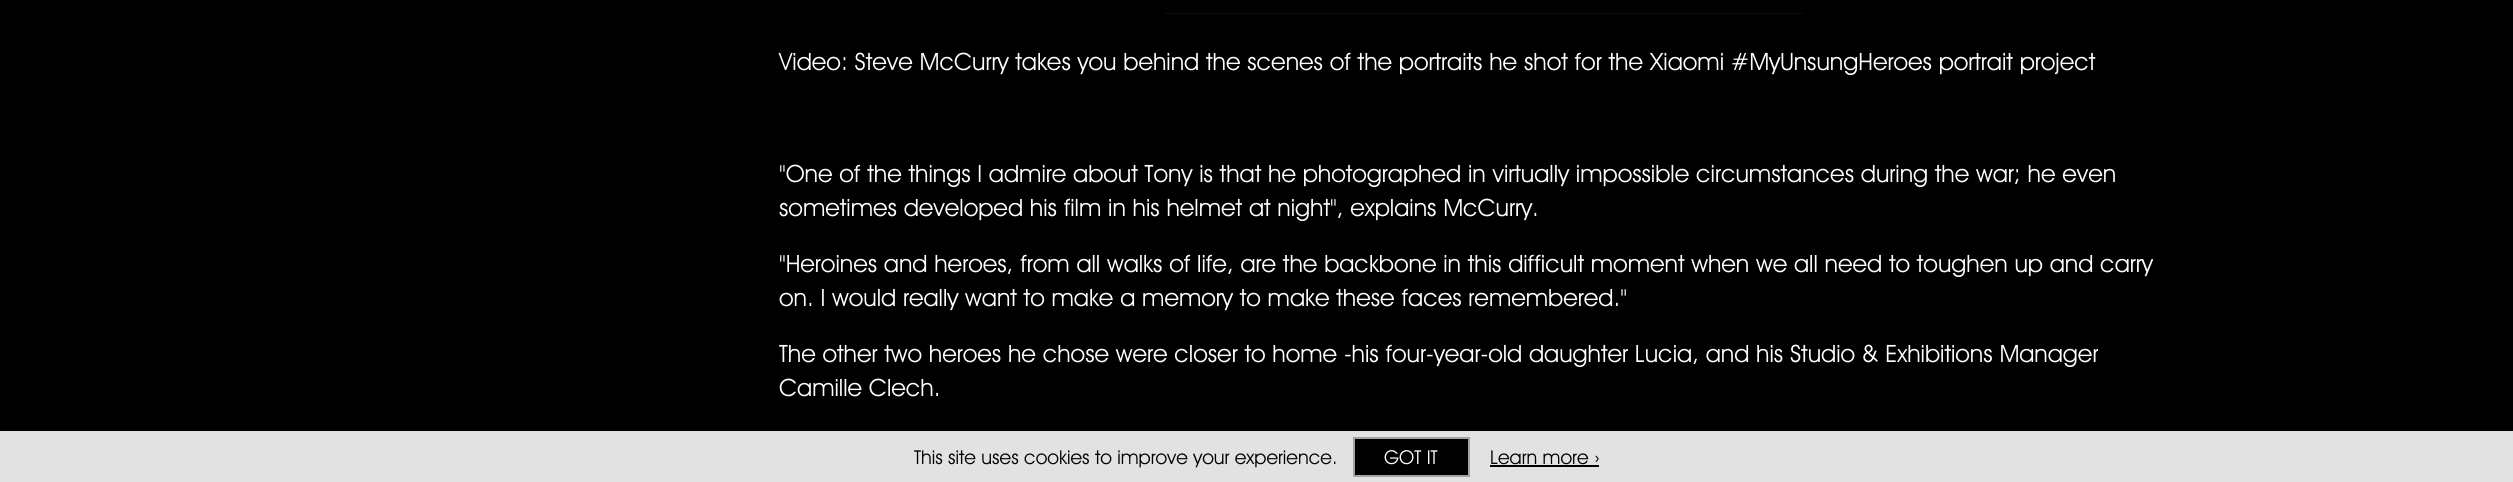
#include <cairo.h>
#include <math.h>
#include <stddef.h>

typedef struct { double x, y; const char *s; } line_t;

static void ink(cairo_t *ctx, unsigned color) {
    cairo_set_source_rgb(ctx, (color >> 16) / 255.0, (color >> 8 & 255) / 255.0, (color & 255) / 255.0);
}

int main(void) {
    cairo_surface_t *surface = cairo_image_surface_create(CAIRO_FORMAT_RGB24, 2513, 482);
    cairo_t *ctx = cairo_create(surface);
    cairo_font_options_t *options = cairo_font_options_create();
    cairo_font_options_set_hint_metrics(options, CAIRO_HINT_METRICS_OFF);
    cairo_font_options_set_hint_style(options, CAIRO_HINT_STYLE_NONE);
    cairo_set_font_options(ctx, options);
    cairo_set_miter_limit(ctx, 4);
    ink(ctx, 0x000000);
    cairo_paint(ctx);
    ink(ctx, 0x0B0D10);
    cairo_rectangle(ctx, 1164, 13, 639, 1);
    cairo_fill(ctx);
    cairo_select_font_face(ctx, "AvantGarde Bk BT", CAIRO_FONT_SLANT_NORMAL, CAIRO_FONT_WEIGHT_NORMAL);
    cairo_set_font_size(ctx, 24);
    ink(ctx, 0xFFFFFF);
    {
        static const line_t items[] = {
            {779, 70, "Video: Steve McCurry takes you behind the scenes of the portraits he shot for the Xiaomi #MyUnsungHeroes portrait project"},
            {779, 182, "\"One of the things I admire about Tony is that he photographed in virtually impossible circumstances during the war; he even"},
            {779, 216, "sometimes developed his film in his helmet at night\", explains McCurry."},
            {779, 272, "\"Heroines and heroes, from all walks of life, are the backbone in this difficult moment when we all need to toughen up and carry"},
            {779, 306, "on. I would really want to make a memory to make these faces remembered.\""},
            {779, 362, "The other two heroes he chose were closer to home -his four-year-old daughter Lucia, and his Studio & Exhibitions Manager"},
            {779, 396, "Camille Clech."},
        };
        for (size_t i = 0; i < sizeof items / sizeof *items; i++) {
            cairo_move_to(ctx, items[i].x, items[i].y);
            cairo_show_text(ctx, items[i].s);
        }
    }
    ink(ctx, 0xE2E2E2);
    cairo_rectangle(ctx, 0, 431, 2513, 51);
    cairo_fill(ctx);
    cairo_set_font_size(ctx, 19.2);
    ink(ctx, 0x000000);
    cairo_move_to(ctx, 914, 464);
    cairo_show_text(ctx, "This site uses cookies to improve your experience.");
    cairo_rectangle(ctx, 1354, 438, 115, 38);
    cairo_fill_preserve(ctx);
    ink(ctx, 0xA3A3A3);
    cairo_stroke(ctx);
    ink(ctx, 0xFFFFFF);
    cairo_move_to(ctx, 1384, 464);
    cairo_show_text(ctx, "GOT IT");
    ink(ctx, 0x000000);
    cairo_move_to(ctx, 1490, 464);
    cairo_show_text(ctx, "Learn more ›");
    cairo_rectangle(ctx, 1490, 465, 109, 2);
    cairo_fill(ctx);
    cairo_surface_write_to_png(surface, "image.png");
    cairo_font_options_destroy(options);
    cairo_destroy(ctx);
    cairo_surface_destroy(surface);
    return 0;
}
